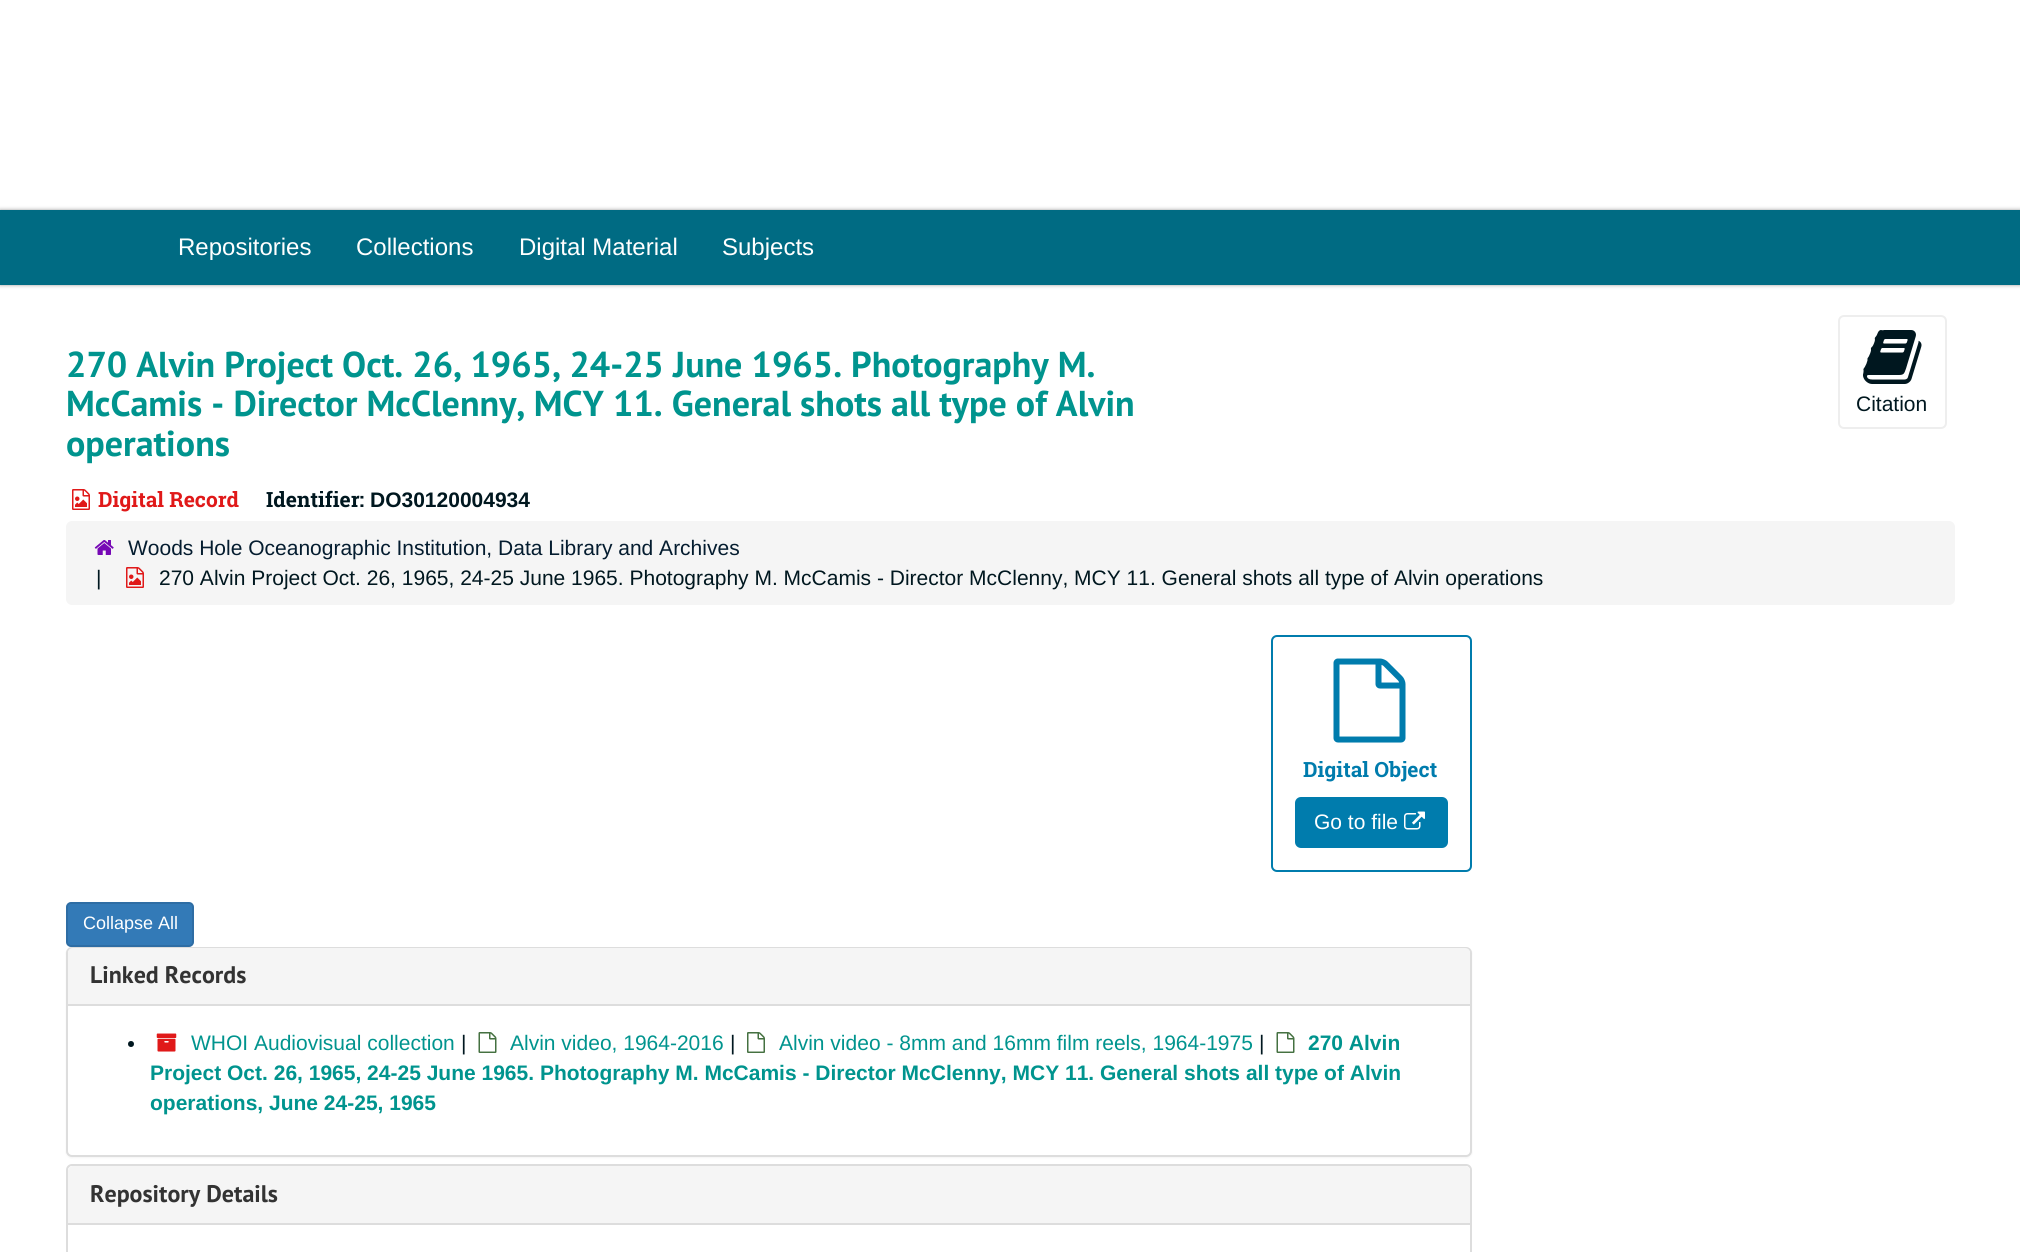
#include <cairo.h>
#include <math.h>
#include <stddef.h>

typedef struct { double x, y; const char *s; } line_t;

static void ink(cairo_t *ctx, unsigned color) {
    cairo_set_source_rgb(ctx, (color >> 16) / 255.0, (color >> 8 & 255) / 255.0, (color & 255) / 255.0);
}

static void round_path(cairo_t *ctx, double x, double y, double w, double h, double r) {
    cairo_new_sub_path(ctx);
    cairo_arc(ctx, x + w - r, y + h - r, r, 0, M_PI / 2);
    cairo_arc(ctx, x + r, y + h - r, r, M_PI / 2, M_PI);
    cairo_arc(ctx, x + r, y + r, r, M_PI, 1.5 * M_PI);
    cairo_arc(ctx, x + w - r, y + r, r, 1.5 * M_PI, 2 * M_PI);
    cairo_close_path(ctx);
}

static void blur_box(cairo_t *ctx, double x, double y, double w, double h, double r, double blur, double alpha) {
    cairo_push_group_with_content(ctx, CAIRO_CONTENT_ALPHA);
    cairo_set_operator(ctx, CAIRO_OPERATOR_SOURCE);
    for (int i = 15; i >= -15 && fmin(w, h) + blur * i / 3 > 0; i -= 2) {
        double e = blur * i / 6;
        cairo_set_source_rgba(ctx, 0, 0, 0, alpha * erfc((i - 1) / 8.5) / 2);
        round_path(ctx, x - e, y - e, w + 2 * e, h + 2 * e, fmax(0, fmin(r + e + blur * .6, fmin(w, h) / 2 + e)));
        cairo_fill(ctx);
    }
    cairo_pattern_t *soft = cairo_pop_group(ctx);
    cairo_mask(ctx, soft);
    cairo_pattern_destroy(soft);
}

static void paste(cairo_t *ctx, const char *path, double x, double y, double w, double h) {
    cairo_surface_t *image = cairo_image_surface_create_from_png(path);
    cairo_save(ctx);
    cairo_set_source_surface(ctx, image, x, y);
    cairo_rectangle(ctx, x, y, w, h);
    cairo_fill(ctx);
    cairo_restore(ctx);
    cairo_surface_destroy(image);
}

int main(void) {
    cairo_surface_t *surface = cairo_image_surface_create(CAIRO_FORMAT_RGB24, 2020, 1252);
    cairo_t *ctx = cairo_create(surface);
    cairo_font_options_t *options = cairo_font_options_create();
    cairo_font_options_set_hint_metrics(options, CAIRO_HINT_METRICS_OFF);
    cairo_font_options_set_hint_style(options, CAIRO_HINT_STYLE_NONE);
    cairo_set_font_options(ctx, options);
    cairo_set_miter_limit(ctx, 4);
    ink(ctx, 0xFFFFFF);
    cairo_paint(ctx);
    ink(ctx, 0x999999);
    blur_box(ctx, 0, 210, 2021, 75, 0, 2, 1);
    ink(ctx, 0x006B83);
    cairo_rectangle(ctx, 0, 210, 2020, 75);
    cairo_fill(ctx);
    cairo_select_font_face(ctx, "Liberation Sans", CAIRO_FONT_SLANT_NORMAL, CAIRO_FONT_WEIGHT_NORMAL);
    cairo_set_font_size(ctx, 24);
    ink(ctx, 0xFFFFFF);
    {
        static const line_t items[] = {
            {178, 255, "Repositories"},
            {356, 255, "Collections"},
            {519, 255, "Digital Material"},
            {722, 255, "Subjects"},
        };
        for (size_t i = 0; i < sizeof items / sizeof *items; i++) {
            cairo_move_to(ctx, items[i].x, items[i].y);
            cairo_show_text(ctx, items[i].s);
        }
    }
    cairo_select_font_face(ctx, "PT Sans", CAIRO_FONT_SLANT_NORMAL, CAIRO_FONT_WEIGHT_BOLD);
    cairo_set_font_size(ctx, 36);
    ink(ctx, 0x00948E);
    {
        static const line_t items[] = {
            {66, 377, "270 Alvin Project Oct. 26, 1965, 24-25 June 1965. Photography M."},
            {66, 416, "McCamis - Director McClenny, MCY 11. General shots all type of Alvin"},
            {66, 456, "operations"},
        };
        for (size_t i = 0; i < sizeof items / sizeof *items; i++) {
            cairo_move_to(ctx, items[i].x, items[i].y);
            cairo_show_text(ctx, items[i].s);
        }
    }
    paste(ctx, "media/1.png", 72, 489, 18, 21);
    cairo_select_font_face(ctx, "Roboto Slab", CAIRO_FONT_SLANT_NORMAL, CAIRO_FONT_WEIGHT_BOLD);
    cairo_set_font_size(ctx, 21);
    ink(ctx, 0xE01919);
    cairo_move_to(ctx, 98, 507);
    cairo_show_text(ctx, "Digital Record");
    ink(ctx, 0x00171F);
    cairo_move_to(ctx, 266, 507);
    cairo_show_text(ctx, "Identifier:");
    cairo_select_font_face(ctx, "Liberation Sans", CAIRO_FONT_SLANT_NORMAL, CAIRO_FONT_WEIGHT_BOLD);
    cairo_move_to(ctx, 370, 507);
    cairo_show_text(ctx, "DO30120004934");
    round_path(ctx, 1839, 316, 107, 112, 5);
    ink(ctx, 0xEEEEEE);
    cairo_stroke(ctx);
    paste(ctx, "media/2.png", 1863, 330, 59, 54);
    cairo_select_font_face(ctx, "Liberation Sans", CAIRO_FONT_SLANT_NORMAL, CAIRO_FONT_WEIGHT_NORMAL);
    ink(ctx, 0x00171F);
    cairo_move_to(ctx, 1856, 411);
    cairo_show_text(ctx, "Citation");
    ink(ctx, 0xF5F5F5);
    round_path(ctx, 66, 521, 1889, 84, 6);
    cairo_fill(ctx);
    paste(ctx, "media/3.png", 94, 540, 20, 15);
    ink(ctx, 0x041C2F);
    cairo_move_to(ctx, 128, 555);
    cairo_show_text(ctx, "Woods Hole Oceanographic Institution, Data Library and Archives");
    ink(ctx, 0x00171F);
    cairo_move_to(ctx, 96, 585);
    cairo_show_text(ctx, "|");
    paste(ctx, "media/4.png", 126, 567, 18, 21);
    cairo_move_to(ctx, 159, 585);
    cairo_show_text(ctx, "270 Alvin Project Oct. 26, 1965, 24-25 June 1965. Photography M. McCamis - Director McClenny, MCY 11. General shots all type of Alvin operations");
    round_path(ctx, 1272, 636, 199, 235, 5);
    ink(ctx, 0x007CAD);
    cairo_stroke(ctx);
    paste(ctx, "media/5.png", 1333, 658, 73, 85);
    cairo_select_font_face(ctx, "Roboto Slab", CAIRO_FONT_SLANT_NORMAL, CAIRO_FONT_WEIGHT_BOLD);
    cairo_move_to(ctx, 1303, 777);
    cairo_show_text(ctx, "Digital Object");
    round_path(ctx, 1296, 798, 151, 49, 5);
    cairo_fill_preserve(ctx);
    cairo_stroke(ctx);
    cairo_select_font_face(ctx, "Liberation Sans", CAIRO_FONT_SLANT_NORMAL, CAIRO_FONT_WEIGHT_NORMAL);
    ink(ctx, 0xFFFFFF);
    cairo_move_to(ctx, 1314, 829);
    cairo_show_text(ctx, "Go to file");
    paste(ctx, "media/6.png", 1404, 811, 21, 19);
    ink(ctx, 0x000000);
    blur_box(ctx, 66, 948, 1406, 210, 6, 1, 0.05);
    ink(ctx, 0x337AB7);
    round_path(ctx, 67, 903, 126, 43, 4);
    cairo_fill_preserve(ctx);
    ink(ctx, 0x2E6DA4);
    cairo_stroke(ctx);
    cairo_set_font_size(ctx, 18);
    ink(ctx, 0xFFFFFF);
    cairo_move_to(ctx, 83, 929);
    cairo_show_text(ctx, "Collapse All");
    round_path(ctx, 67, 948, 1404, 208, 5);
    cairo_fill_preserve(ctx);
    ink(ctx, 0xDDDDDD);
    cairo_stroke(ctx);
    ink(ctx, 0xF5F5F5);
    cairo_new_path(ctx);
    cairo_move_to(ctx, 73, 948);
    cairo_line_to(ctx, 1465, 948);
    cairo_curve_to(ctx, 1468, 948, 1470, 950, 1470, 953);
    cairo_line_to(ctx, 1470, 1004);
    cairo_line_to(ctx, 68, 1004);
    cairo_line_to(ctx, 68, 953);
    cairo_curve_to(ctx, 68, 950, 70, 948, 73, 948);
    cairo_close_path(ctx);
    cairo_fill(ctx);
    cairo_select_font_face(ctx, "PT Sans", CAIRO_FONT_SLANT_NORMAL, CAIRO_FONT_WEIGHT_BOLD);
    cairo_set_font_size(ctx, 24);
    ink(ctx, 0x333333);
    cairo_move_to(ctx, 90, 983);
    cairo_show_text(ctx, "Linked Records");
    ink(ctx, 0xDDDDDD);
    cairo_rectangle(ctx, 68, 1004, 1402, 2);
    cairo_fill(ctx);
    ink(ctx, 0x00171F);
    cairo_arc(ctx, 131, 1044, 3, 0, 2 * M_PI);
    cairo_fill(ctx);
    paste(ctx, "media/7.png", 156, 1033, 21, 19);
    cairo_select_font_face(ctx, "Liberation Sans", CAIRO_FONT_SLANT_NORMAL, CAIRO_FONT_WEIGHT_NORMAL);
    cairo_set_font_size(ctx, 21);
    ink(ctx, 0x00948E);
    cairo_move_to(ctx, 191, 1050);
    cairo_show_text(ctx, "WHOI Audiovisual collection");
    ink(ctx, 0x00171F);
    cairo_move_to(ctx, 461, 1050);
    cairo_show_text(ctx, "|");
    paste(ctx, "media/8.png", 478, 1032, 19, 21);
    ink(ctx, 0x00948E);
    cairo_move_to(ctx, 510, 1050);
    cairo_show_text(ctx, "Alvin video, 1964-2016");
    ink(ctx, 0x00171F);
    cairo_move_to(ctx, 730, 1050);
    cairo_show_text(ctx, "|");
    paste(ctx, "media/9.png", 747, 1032, 18, 21);
    ink(ctx, 0x00948E);
    cairo_move_to(ctx, 779, 1050);
    cairo_show_text(ctx, "Alvin video - 8mm and 16mm film reels, 1964-1975");
    ink(ctx, 0x00171F);
    cairo_move_to(ctx, 1259, 1050);
    cairo_show_text(ctx, "|");
    paste(ctx, "media/8.png", 1276, 1032, 19, 21);
    cairo_select_font_face(ctx, "Liberation Sans", CAIRO_FONT_SLANT_NORMAL, CAIRO_FONT_WEIGHT_BOLD);
    ink(ctx, 0x00948E);
    {
        static const line_t items[] = {
            {1308, 1050, "270 Alvin"},
            {150, 1080, "Project Oct. 26, 1965, 24-25 June 1965. Photography M. McCamis - Director McClenny, MCY 11. General shots all type of Alvin"},
            {150, 1110, "operations, June 24-25, 1965"},
        };
        for (size_t i = 0; i < sizeof items / sizeof *items; i++) {
            cairo_move_to(ctx, items[i].x, items[i].y);
            cairo_show_text(ctx, items[i].s);
        }
    }
    round_path(ctx, 67, 1165, 1404, 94, 5);
    ink(ctx, 0xDDDDDD);
    cairo_stroke(ctx);
    ink(ctx, 0xF5F5F5);
    cairo_new_path(ctx);
    cairo_move_to(ctx, 73, 1166);
    cairo_line_to(ctx, 1465, 1166);
    cairo_curve_to(ctx, 1468, 1166, 1470, 1168, 1470, 1171);
    cairo_line_to(ctx, 1470, 1223);
    cairo_line_to(ctx, 68, 1223);
    cairo_line_to(ctx, 68, 1171);
    cairo_curve_to(ctx, 68, 1168, 70, 1166, 73, 1166);
    cairo_close_path(ctx);
    cairo_fill(ctx);
    cairo_select_font_face(ctx, "PT Sans", CAIRO_FONT_SLANT_NORMAL, CAIRO_FONT_WEIGHT_BOLD);
    cairo_set_font_size(ctx, 24);
    ink(ctx, 0x333333);
    cairo_move_to(ctx, 90, 1202);
    cairo_show_text(ctx, "Repository Details");
    ink(ctx, 0xDDDDDD);
    cairo_rectangle(ctx, 68, 1223, 1402, 2);
    cairo_fill(ctx);
    cairo_surface_write_to_png(surface, "image.png");
    cairo_font_options_destroy(options);
    cairo_destroy(ctx);
    cairo_surface_destroy(surface);
    return 0;
}
